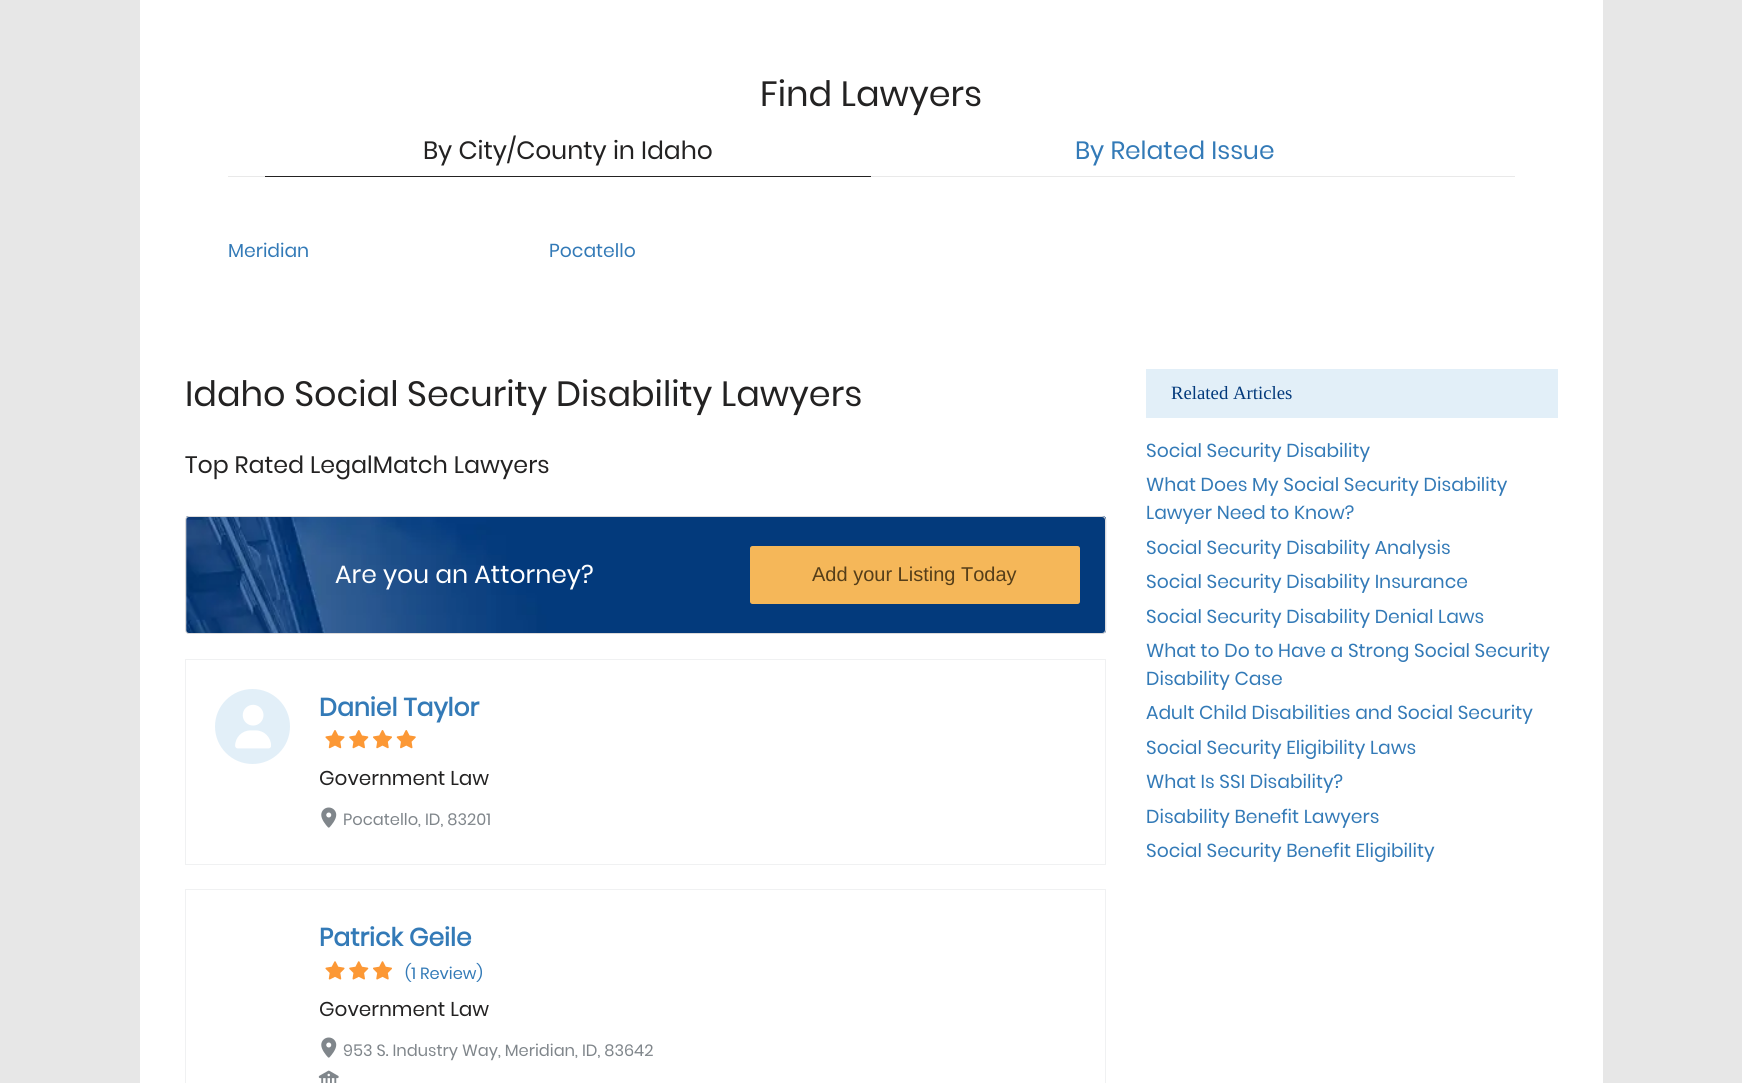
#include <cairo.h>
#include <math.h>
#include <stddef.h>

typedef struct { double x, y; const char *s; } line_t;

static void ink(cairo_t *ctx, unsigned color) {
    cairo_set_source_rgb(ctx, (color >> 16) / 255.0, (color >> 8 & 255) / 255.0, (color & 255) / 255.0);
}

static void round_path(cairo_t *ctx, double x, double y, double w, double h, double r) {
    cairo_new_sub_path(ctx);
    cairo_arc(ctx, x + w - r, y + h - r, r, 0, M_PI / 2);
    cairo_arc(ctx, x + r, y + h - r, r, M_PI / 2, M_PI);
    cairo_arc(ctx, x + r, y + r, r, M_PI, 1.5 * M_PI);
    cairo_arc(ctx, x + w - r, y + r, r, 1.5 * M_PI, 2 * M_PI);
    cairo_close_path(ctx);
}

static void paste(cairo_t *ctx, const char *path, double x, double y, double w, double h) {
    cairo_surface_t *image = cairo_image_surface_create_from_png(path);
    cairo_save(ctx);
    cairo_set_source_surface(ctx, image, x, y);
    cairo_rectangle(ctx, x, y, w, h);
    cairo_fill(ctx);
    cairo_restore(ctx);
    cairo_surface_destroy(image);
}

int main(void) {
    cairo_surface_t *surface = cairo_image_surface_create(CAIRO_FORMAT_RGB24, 1742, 1083);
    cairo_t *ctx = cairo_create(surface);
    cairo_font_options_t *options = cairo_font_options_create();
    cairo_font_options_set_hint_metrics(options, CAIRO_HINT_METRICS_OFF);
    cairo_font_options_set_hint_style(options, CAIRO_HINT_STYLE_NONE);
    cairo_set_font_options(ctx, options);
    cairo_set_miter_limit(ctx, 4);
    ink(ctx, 0xE7E7E7);
    cairo_paint(ctx);
    ink(ctx, 0xFFFFFF);
    cairo_rectangle(ctx, 140, 0, 1463, 1083);
    cairo_fill(ctx);
    cairo_select_font_face(ctx, "Poppins", CAIRO_FONT_SLANT_NORMAL, CAIRO_FONT_WEIGHT_NORMAL);
    cairo_set_font_size(ctx, 35);
    ink(ctx, 0x232222);
    cairo_move_to(ctx, 760, 106);
    cairo_show_text(ctx, "Find Lawyers");
    ink(ctx, 0xE9E9E9);
    cairo_rectangle(ctx, 228, 176, 1287, 1);
    cairo_fill(ctx);
    ink(ctx, 0x232222);
    cairo_rectangle(ctx, 265, 176, 606, 1);
    cairo_fill(ctx);
    cairo_set_font_size(ctx, 25);
    cairo_move_to(ctx, 423, 159);
    cairo_show_text(ctx, "By City/County in Idaho");
    ink(ctx, 0x337AB7);
    cairo_move_to(ctx, 1075, 159);
    cairo_show_text(ctx, "By Related Issue");
    cairo_set_font_size(ctx, 18.75);
    cairo_move_to(ctx, 228, 257);
    cairo_show_text(ctx, "Meridian");
    cairo_move_to(ctx, 549, 257);
    cairo_show_text(ctx, "Pocatello");
    cairo_set_font_size(ctx, 35);
    ink(ctx, 0x232222);
    cairo_move_to(ctx, 185, 406);
    cairo_show_text(ctx, "Idaho Social Security Disability Lawyers");
    cairo_set_font_size(ctx, 23.75);
    cairo_move_to(ctx, 185, 473);
    cairo_show_text(ctx, "Top Rated LegalMatch Lawyers");
    paste(ctx, "media/1.png", 186, 516, 921, 118);
    round_path(ctx, 185.5, 516.5, 920, 117, 3.5);
    ink(ctx, 0xDCDADA);
    cairo_set_line_width(ctx, 1);
    cairo_stroke(ctx);
    cairo_set_font_size(ctx, 25);
    ink(ctx, 0xFFFFFF);
    cairo_move_to(ctx, 335, 583);
    cairo_show_text(ctx, "Are you an Attorney?");
    ink(ctx, 0xF5B759);
    round_path(ctx, 750, 546, 330, 58, 2.5);
    cairo_fill(ctx);
    cairo_select_font_face(ctx, "Liberation Sans", CAIRO_FONT_SLANT_NORMAL, CAIRO_FONT_WEIGHT_NORMAL);
    cairo_set_font_size(ctx, 20);
    ink(ctx, 0x553E19);
    cairo_move_to(ctx, 812, 581);
    cairo_show_text(ctx, "Add your Listing Today");
    cairo_rectangle(ctx, 185.5, 659.5, 920, 205);
    ink(ctx, 0xF0F1F2);
    cairo_stroke(ctx);
    ink(ctx, 0xE2EFF8);
    cairo_arc(ctx, 252.5, 726.5, 37.5, 0, 2 * M_PI);
    cairo_fill(ctx);
    paste(ctx, "media/2.png", 235, 704, 36, 45);
    cairo_select_font_face(ctx, "Poppins", CAIRO_FONT_SLANT_NORMAL, CAIRO_FONT_WEIGHT_BOLD);
    cairo_set_font_size(ctx, 25);
    ink(ctx, 0x337AB7);
    cairo_move_to(ctx, 319, 716);
    cairo_show_text(ctx, "Daniel Taylor");
    paste(ctx, "media/3.png", 325, 730, 20, 19);
    paste(ctx, "media/4.png", 349, 730, 20, 19);
    paste(ctx, "media/5.png", 373, 730, 19, 19);
    paste(ctx, "media/6.png", 396, 730, 20, 19);
    cairo_select_font_face(ctx, "Poppins", CAIRO_FONT_SLANT_NORMAL, CAIRO_FONT_WEIGHT_NORMAL);
    cairo_set_font_size(ctx, 20);
    ink(ctx, 0x232222);
    cairo_move_to(ctx, 319, 785);
    cairo_show_text(ctx, "Government Law");
    paste(ctx, "media/7.png", 321, 807, 16, 21);
    cairo_set_font_size(ctx, 16.25);
    ink(ctx, 0x80868B);
    cairo_move_to(ctx, 343, 825);
    cairo_show_text(ctx, "Pocatello, ID, 83201");
    cairo_rectangle(ctx, 185.5, 889.5, 920, 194);
    ink(ctx, 0xF0F1F2);
    cairo_stroke(ctx);
    cairo_select_font_face(ctx, "Poppins", CAIRO_FONT_SLANT_NORMAL, CAIRO_FONT_WEIGHT_BOLD);
    cairo_set_font_size(ctx, 25);
    ink(ctx, 0x337AB7);
    cairo_move_to(ctx, 319, 946);
    cairo_show_text(ctx, "Patrick Geile");
    paste(ctx, "media/8.png", 325, 961, 20, 19);
    paste(ctx, "media/9.png", 349, 961, 20, 19);
    paste(ctx, "media/10.png", 373, 961, 19, 19);
    cairo_select_font_face(ctx, "Poppins", CAIRO_FONT_SLANT_NORMAL, CAIRO_FONT_WEIGHT_NORMAL);
    cairo_set_font_size(ctx, 16.25);
    cairo_move_to(ctx, 405, 979);
    cairo_show_text(ctx, "(1 Review)");
    cairo_set_font_size(ctx, 20);
    ink(ctx, 0x232222);
    cairo_move_to(ctx, 319, 1016);
    cairo_show_text(ctx, "Government Law");
    paste(ctx, "media/7.png", 321, 1037, 16, 21);
    cairo_set_font_size(ctx, 16.25);
    ink(ctx, 0x80868B);
    cairo_move_to(ctx, 343, 1056);
    cairo_show_text(ctx, "953 S. Industry Way, Meridian, ID, 83642");
    paste(ctx, "media/11.png", 318, 1070, 21, 13);
    ink(ctx, 0xE2EFF8);
    cairo_rectangle(ctx, 1146, 369, 412, 49);
    cairo_fill(ctx);
    cairo_select_font_face(ctx, "Liberation Serif", CAIRO_FONT_SLANT_NORMAL, CAIRO_FONT_WEIGHT_NORMAL);
    cairo_set_font_size(ctx, 18.75);
    ink(ctx, 0x02397B);
    cairo_move_to(ctx, 1171, 399);
    cairo_show_text(ctx, "Related Articles");
    cairo_select_font_face(ctx, "Poppins", CAIRO_FONT_SLANT_NORMAL, CAIRO_FONT_WEIGHT_NORMAL);
    ink(ctx, 0x337AB7);
    {
        static const line_t items[] = {
            {1146, 457, "Social Security Disability"},
            {1146, 491, "What Does My Social Security Disability"},
            {1146, 519, "Lawyer Need to Know?"},
            {1146, 554, "Social Security Disability Analysis"},
            {1146, 588, "Social Security Disability Insurance"},
            {1146, 623, "Social Security Disability Denial Laws"},
            {1146, 657, "What to Do to Have a Strong Social Security"},
            {1146, 685, "Disability Case"},
            {1146, 719, "Adult Child Disabilities and Social Security"},
            {1146, 754, "Social Security Eligibility Laws"},
            {1146, 788, "What Is SSI Disability?"},
            {1146, 823, "Disability Benefit Lawyers"},
            {1146, 857, "Social Security Benefit Eligibility"},
        };
        for (size_t i = 0; i < sizeof items / sizeof *items; i++) {
            cairo_move_to(ctx, items[i].x, items[i].y);
            cairo_show_text(ctx, items[i].s);
        }
    }
    cairo_surface_write_to_png(surface, "image.png");
    cairo_font_options_destroy(options);
    cairo_destroy(ctx);
    cairo_surface_destroy(surface);
    return 0;
}
